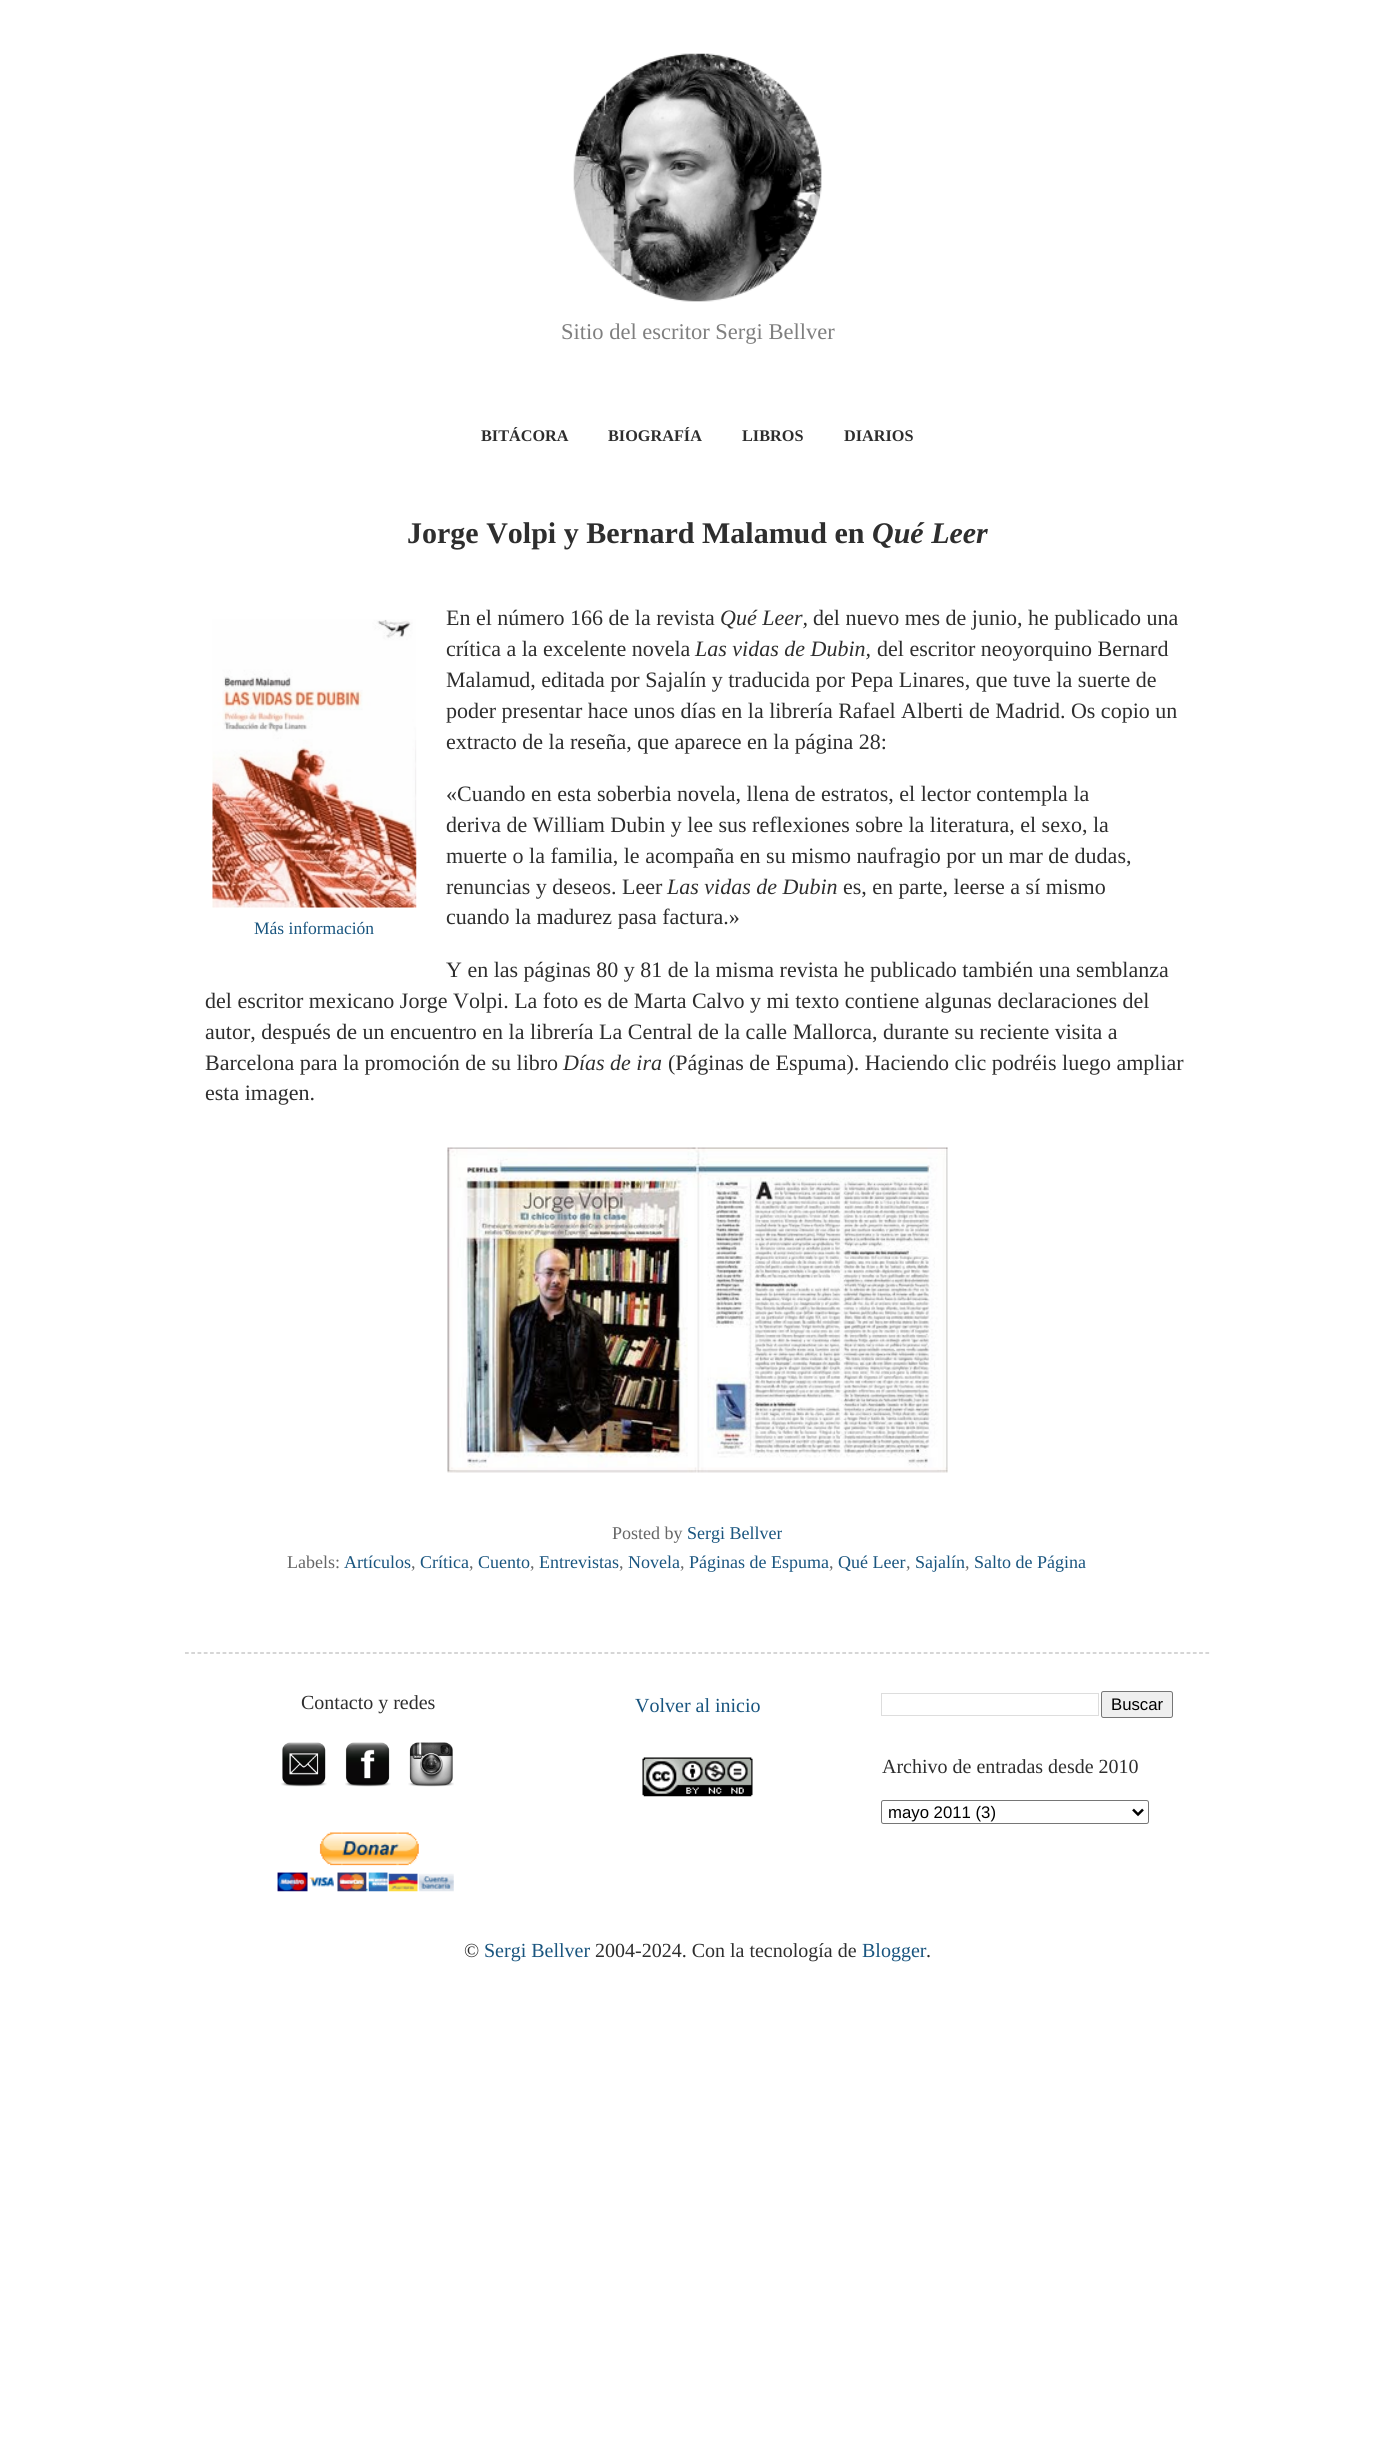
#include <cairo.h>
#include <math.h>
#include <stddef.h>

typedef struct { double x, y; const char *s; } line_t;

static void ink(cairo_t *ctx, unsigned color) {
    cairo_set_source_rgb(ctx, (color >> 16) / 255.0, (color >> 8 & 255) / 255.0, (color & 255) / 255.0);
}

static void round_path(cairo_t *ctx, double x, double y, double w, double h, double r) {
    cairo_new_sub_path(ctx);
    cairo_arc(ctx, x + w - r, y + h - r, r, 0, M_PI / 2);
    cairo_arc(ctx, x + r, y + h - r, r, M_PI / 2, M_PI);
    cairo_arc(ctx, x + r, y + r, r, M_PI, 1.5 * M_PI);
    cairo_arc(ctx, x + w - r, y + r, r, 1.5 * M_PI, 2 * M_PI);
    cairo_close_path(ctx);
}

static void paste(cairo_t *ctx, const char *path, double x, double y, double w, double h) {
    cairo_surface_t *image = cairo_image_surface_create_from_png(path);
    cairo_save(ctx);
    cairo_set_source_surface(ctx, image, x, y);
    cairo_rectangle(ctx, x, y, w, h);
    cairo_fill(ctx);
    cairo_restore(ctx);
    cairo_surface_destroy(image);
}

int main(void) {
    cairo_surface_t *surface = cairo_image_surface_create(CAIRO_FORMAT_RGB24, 1395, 2449);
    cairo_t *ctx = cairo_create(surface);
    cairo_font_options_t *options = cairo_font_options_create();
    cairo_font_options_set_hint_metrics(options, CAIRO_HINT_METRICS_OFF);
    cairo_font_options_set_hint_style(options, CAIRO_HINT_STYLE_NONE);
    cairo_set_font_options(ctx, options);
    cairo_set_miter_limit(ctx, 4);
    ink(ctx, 0xFFFFFF);
    cairo_paint(ctx);
    paste(ctx, "media/1.png", 573, 53, 249, 249);
    cairo_select_font_face(ctx, "Liberation Serif", CAIRO_FONT_SLANT_NORMAL, CAIRO_FONT_WEIGHT_NORMAL);
    cairo_set_font_size(ctx, 22.5);
    ink(ctx, 0x7F7F7F);
    cairo_move_to(ctx, 561, 339);
    cairo_show_text(ctx, "Sitio del escritor Sergi Bellver");
    cairo_select_font_face(ctx, "Liberation Serif", CAIRO_FONT_SLANT_NORMAL, CAIRO_FONT_WEIGHT_BOLD);
    cairo_set_font_size(ctx, 16.25);
    ink(ctx, 0x2E2E2E);
    {
        static const line_t items[] = {
            {481, 441, "BITÁCORA"},
            {608, 441, "BIOGRAFÍA"},
            {742, 441, "LIBROS"},
            {844, 441, "DIARIOS"},
        };
        for (size_t i = 0; i < sizeof items / sizeof *items; i++) {
            cairo_move_to(ctx, items[i].x, items[i].y);
            cairo_show_text(ctx, items[i].s);
        }
    }
    cairo_set_font_size(ctx, 30);
    cairo_move_to(ctx, 407, 543);
    cairo_show_text(ctx, "Jorge Volpi y Bernard Malamud en");
    cairo_select_font_face(ctx, "Liberation Serif", CAIRO_FONT_SLANT_ITALIC, CAIRO_FONT_WEIGHT_BOLD);
    cairo_move_to(ctx, 872, 543);
    cairo_show_text(ctx, "Qué Leer");
    cairo_select_font_face(ctx, "Liberation Serif", CAIRO_FONT_SLANT_NORMAL, CAIRO_FONT_WEIGHT_NORMAL);
    cairo_set_font_size(ctx, 22);
    cairo_move_to(ctx, 446, 625);
    cairo_show_text(ctx, "En el número 166 de la revista");
    cairo_select_font_face(ctx, "Liberation Serif", CAIRO_FONT_SLANT_ITALIC, CAIRO_FONT_WEIGHT_NORMAL);
    cairo_move_to(ctx, 720, 625);
    cairo_show_text(ctx, "Qué Leer,");
    cairo_select_font_face(ctx, "Liberation Serif", CAIRO_FONT_SLANT_NORMAL, CAIRO_FONT_WEIGHT_NORMAL);
    cairo_move_to(ctx, 813, 625);
    cairo_show_text(ctx, "del nuevo mes de junio, he publicado una");
    cairo_move_to(ctx, 446, 656);
    cairo_show_text(ctx, "crítica a la excelente novela");
    cairo_select_font_face(ctx, "Liberation Serif", CAIRO_FONT_SLANT_ITALIC, CAIRO_FONT_WEIGHT_NORMAL);
    cairo_move_to(ctx, 695, 656);
    cairo_show_text(ctx, "Las vidas de Dubin,");
    cairo_select_font_face(ctx, "Liberation Serif", CAIRO_FONT_SLANT_NORMAL, CAIRO_FONT_WEIGHT_NORMAL);
    {
        static const line_t items[] = {
            {877, 656, "del escritor neoyorquino Bernard"},
            {446, 687, "Malamud, editada por Sajalín y traducida por Pepa Linares, que tuve la suerte de"},
            {446, 718, "poder presentar hace unos días en la librería Rafael Alberti de Madrid. Os copio un"},
            {446, 749, "extracto de la reseña, que aparece en la página 28:"},
        };
        for (size_t i = 0; i < sizeof items / sizeof *items; i++) {
            cairo_move_to(ctx, items[i].x, items[i].y);
            cairo_show_text(ctx, items[i].s);
        }
    }
    paste(ctx, "media/2.png", 212, 619, 205, 289);
    cairo_set_font_size(ctx, 17.5);
    ink(ctx, 0x19557F);
    cairo_move_to(ctx, 254, 934);
    cairo_show_text(ctx, "Más información");
    cairo_set_font_size(ctx, 22);
    ink(ctx, 0x2E2E2E);
    {
        static const line_t items[] = {
            {446, 801, "«Cuando en esta soberbia novela, llena de estratos, el lector contempla la"},
            {446, 832, "deriva de William Dubin y lee sus reflexiones sobre la literatura, el sexo, la"},
            {446, 863, "muerte o la familia, le acompaña en su mismo naufragio por un mar de dudas,"},
            {446, 894, "renuncias y deseos. Leer"},
        };
        for (size_t i = 0; i < sizeof items / sizeof *items; i++) {
            cairo_move_to(ctx, items[i].x, items[i].y);
            cairo_show_text(ctx, items[i].s);
        }
    }
    cairo_select_font_face(ctx, "Liberation Serif", CAIRO_FONT_SLANT_ITALIC, CAIRO_FONT_WEIGHT_NORMAL);
    cairo_move_to(ctx, 667, 894);
    cairo_show_text(ctx, "Las vidas de Dubin");
    cairo_select_font_face(ctx, "Liberation Serif", CAIRO_FONT_SLANT_NORMAL, CAIRO_FONT_WEIGHT_NORMAL);
    {
        static const line_t items[] = {
            {843, 894, "es, en parte, leerse a sí mismo"},
            {446, 924, "cuando la madurez pasa factura.»"},
            {446, 977, "Y en las páginas 80 y 81 de la misma revista he publicado también una semblanza"},
            {205, 1008, "del escritor mexicano Jorge Volpi. La foto es de Marta Calvo y mi texto contiene algunas declaraciones del"},
            {205, 1039, "autor, después de un encuentro en la librería La Central de la calle Mallorca, durante su reciente visita a"},
            {205, 1070, "Barcelona para la promoción de su libro"},
        };
        for (size_t i = 0; i < sizeof items / sizeof *items; i++) {
            cairo_move_to(ctx, items[i].x, items[i].y);
            cairo_show_text(ctx, items[i].s);
        }
    }
    cairo_select_font_face(ctx, "Liberation Serif", CAIRO_FONT_SLANT_ITALIC, CAIRO_FONT_WEIGHT_NORMAL);
    cairo_move_to(ctx, 563, 1070);
    cairo_show_text(ctx, "Días de ira");
    cairo_select_font_face(ctx, "Liberation Serif", CAIRO_FONT_SLANT_NORMAL, CAIRO_FONT_WEIGHT_NORMAL);
    cairo_move_to(ctx, 668, 1070);
    cairo_show_text(ctx, "(Páginas de Espuma). Haciendo clic podréis luego ampliar");
    cairo_move_to(ctx, 205, 1100);
    cairo_show_text(ctx, "esta imagen.");
    paste(ctx, "media/3.png", 447, 1147, 501, 326);
    cairo_set_font_size(ctx, 18);
    ink(ctx, 0x666666);
    cairo_move_to(ctx, 612, 1539);
    cairo_show_text(ctx, "Posted by");
    ink(ctx, 0x19557F);
    cairo_move_to(ctx, 687, 1539);
    cairo_show_text(ctx, "Sergi Bellver");
    ink(ctx, 0x666666);
    cairo_move_to(ctx, 287, 1568);
    cairo_show_text(ctx, "Labels:");
    ink(ctx, 0x19557F);
    cairo_move_to(ctx, 344, 1568);
    cairo_show_text(ctx, "Artículos");
    ink(ctx, 0x666666);
    cairo_move_to(ctx, 411, 1568);
    cairo_show_text(ctx, ",");
    ink(ctx, 0x19557F);
    cairo_move_to(ctx, 420, 1568);
    cairo_show_text(ctx, "Crítica");
    ink(ctx, 0x666666);
    cairo_move_to(ctx, 469, 1568);
    cairo_show_text(ctx, ",");
    ink(ctx, 0x19557F);
    cairo_move_to(ctx, 478, 1568);
    cairo_show_text(ctx, "Cuento");
    ink(ctx, 0x666666);
    cairo_move_to(ctx, 530, 1568);
    cairo_show_text(ctx, ",");
    ink(ctx, 0x19557F);
    cairo_move_to(ctx, 539, 1568);
    cairo_show_text(ctx, "Entrevistas");
    ink(ctx, 0x666666);
    cairo_move_to(ctx, 619, 1568);
    cairo_show_text(ctx, ",");
    ink(ctx, 0x19557F);
    cairo_move_to(ctx, 628, 1568);
    cairo_show_text(ctx, "Novela");
    ink(ctx, 0x666666);
    cairo_move_to(ctx, 680, 1568);
    cairo_show_text(ctx, ",");
    ink(ctx, 0x19557F);
    cairo_move_to(ctx, 689, 1568);
    cairo_show_text(ctx, "Páginas de Espuma");
    ink(ctx, 0x666666);
    cairo_move_to(ctx, 829, 1568);
    cairo_show_text(ctx, ",");
    ink(ctx, 0x19557F);
    cairo_move_to(ctx, 838, 1568);
    cairo_show_text(ctx, "Qué Leer");
    ink(ctx, 0x666666);
    cairo_move_to(ctx, 906, 1568);
    cairo_show_text(ctx, ",");
    ink(ctx, 0x19557F);
    cairo_move_to(ctx, 915, 1568);
    cairo_show_text(ctx, "Sajalín");
    ink(ctx, 0x666666);
    cairo_move_to(ctx, 965, 1568);
    cairo_show_text(ctx, ",");
    ink(ctx, 0x19557F);
    cairo_move_to(ctx, 974, 1568);
    cairo_show_text(ctx, "Salto de Página");
    cairo_new_path(ctx);
    cairo_move_to(ctx, 185, 1653);
    cairo_line_to(ctx, 1210, 1653);
    ink(ctx, 0xBBBBBB);
    cairo_set_line_width(ctx, 1.2);
    cairo_set_dash(ctx, (double[]){3.75, 2.51}, 2, 0);
    cairo_stroke(ctx);
    cairo_set_font_size(ctx, 20);
    ink(ctx, 0x2E2E2E);
    cairo_move_to(ctx, 301, 1709);
    cairo_show_text(ctx, "Contacto y redes");
    paste(ctx, "media/4.png", 281, 1742, 46, 45);
    paste(ctx, "media/5.png", 345, 1742, 46, 45);
    paste(ctx, "media/6.png", 408, 1742, 46, 45);
    paste(ctx, "media/7.png", 277, 1832, 177, 60);
    ink(ctx, 0x19557F);
    cairo_move_to(ctx, 635, 1712);
    cairo_show_text(ctx, "Volver al inicio");
    paste(ctx, "media/8.png", 642, 1757, 111, 40);
    cairo_rectangle(ctx, 881.5, 1693.5, 217, 22);
    ink(ctx, 0xDDDDDD);
    cairo_set_line_width(ctx, 1);
    cairo_set_dash(ctx, NULL, 0, 0);
    cairo_stroke(ctx);
    ink(ctx, 0xEFEFEF);
    round_path(ctx, 1101.5, 1691.5, 71, 26, 2);
    cairo_fill_preserve(ctx);
    ink(ctx, 0x767676);
    cairo_stroke(ctx);
    cairo_select_font_face(ctx, "Liberation Sans", CAIRO_FONT_SLANT_NORMAL, CAIRO_FONT_WEIGHT_NORMAL);
    cairo_set_font_size(ctx, 16.75);
    ink(ctx, 0x000000);
    cairo_move_to(ctx, 1111, 1710);
    cairo_show_text(ctx, "Buscar");
    cairo_select_font_face(ctx, "Liberation Serif", CAIRO_FONT_SLANT_NORMAL, CAIRO_FONT_WEIGHT_NORMAL);
    cairo_set_font_size(ctx, 20);
    ink(ctx, 0x2E2E2E);
    cairo_move_to(ctx, 882, 1773);
    cairo_show_text(ctx, "Archivo de entradas desde 2010");
    round_path(ctx, 881.5, 1800.5, 267, 23, 2);
    ink(ctx, 0x767676);
    cairo_stroke(ctx);
    cairo_new_path(ctx);
    cairo_move_to(ctx, 1133, 1809.5);
    cairo_line_to(ctx, 1138, 1814.5);
    cairo_line_to(ctx, 1143, 1809.5);
    ink(ctx, 0x000000);
    cairo_set_line_width(ctx, 2.5);
    cairo_stroke(ctx);
    cairo_select_font_face(ctx, "Liberation Sans", CAIRO_FONT_SLANT_NORMAL, CAIRO_FONT_WEIGHT_NORMAL);
    cairo_set_font_size(ctx, 16.75);
    cairo_move_to(ctx, 888, 1818);
    cairo_show_text(ctx, "mayo 2011 (3)");
    cairo_select_font_face(ctx, "Liberation Serif", CAIRO_FONT_SLANT_NORMAL, CAIRO_FONT_WEIGHT_NORMAL);
    cairo_set_font_size(ctx, 20);
    ink(ctx, 0x2E2E2E);
    cairo_move_to(ctx, 464, 1957);
    cairo_show_text(ctx, "©");
    ink(ctx, 0x19557F);
    cairo_move_to(ctx, 484, 1957);
    cairo_show_text(ctx, "Sergi Bellver");
    ink(ctx, 0x2E2E2E);
    cairo_move_to(ctx, 595, 1957);
    cairo_show_text(ctx, "2004-2024. Con la tecnología de");
    ink(ctx, 0x19557F);
    cairo_move_to(ctx, 862, 1957);
    cairo_show_text(ctx, "Blogger");
    ink(ctx, 0x2E2E2E);
    cairo_move_to(ctx, 926, 1957);
    cairo_show_text(ctx, ".");
    cairo_surface_write_to_png(surface, "image.png");
    cairo_font_options_destroy(options);
    cairo_destroy(ctx);
    cairo_surface_destroy(surface);
    return 0;
}
